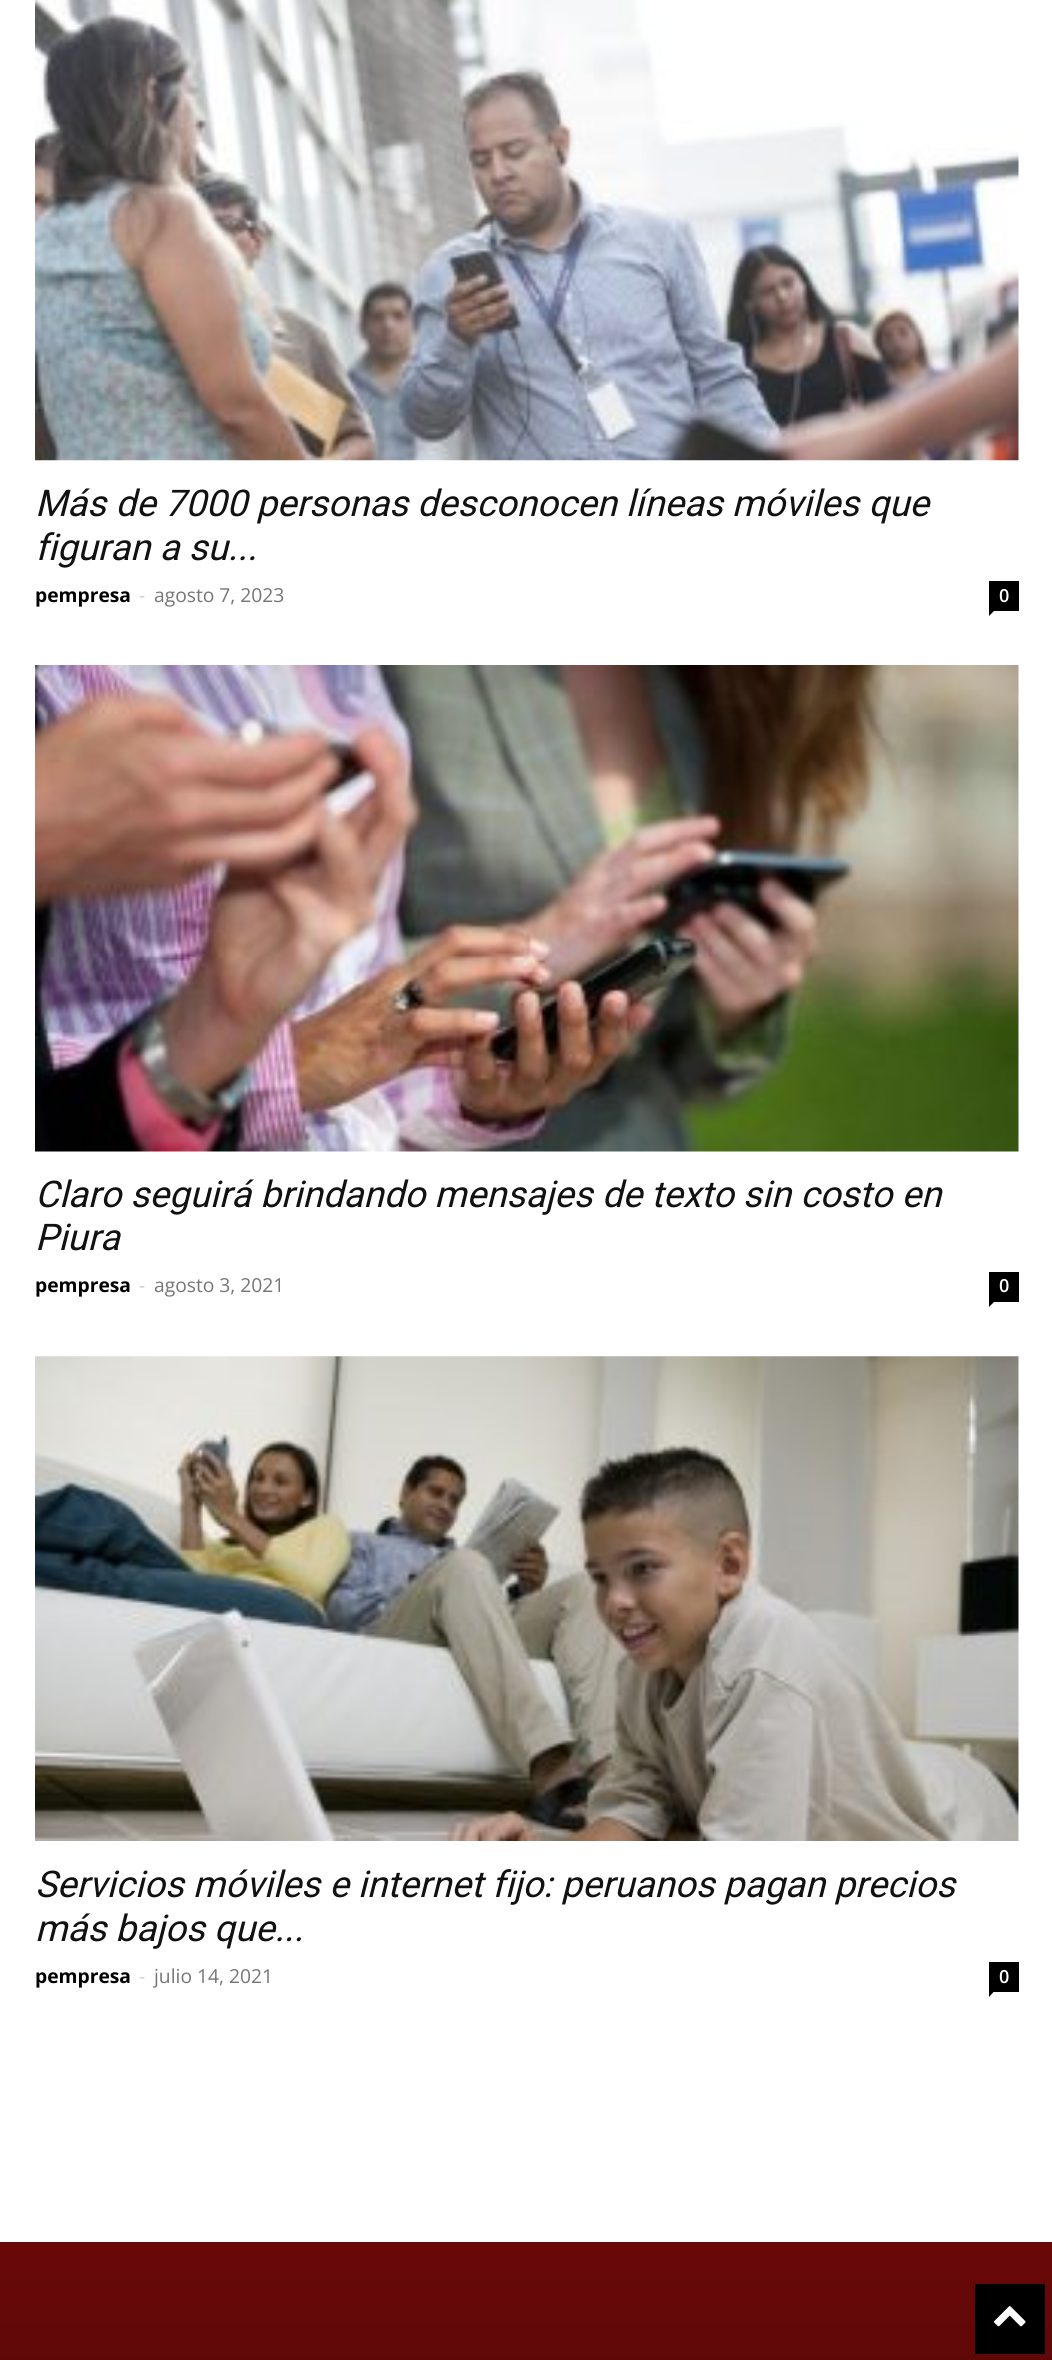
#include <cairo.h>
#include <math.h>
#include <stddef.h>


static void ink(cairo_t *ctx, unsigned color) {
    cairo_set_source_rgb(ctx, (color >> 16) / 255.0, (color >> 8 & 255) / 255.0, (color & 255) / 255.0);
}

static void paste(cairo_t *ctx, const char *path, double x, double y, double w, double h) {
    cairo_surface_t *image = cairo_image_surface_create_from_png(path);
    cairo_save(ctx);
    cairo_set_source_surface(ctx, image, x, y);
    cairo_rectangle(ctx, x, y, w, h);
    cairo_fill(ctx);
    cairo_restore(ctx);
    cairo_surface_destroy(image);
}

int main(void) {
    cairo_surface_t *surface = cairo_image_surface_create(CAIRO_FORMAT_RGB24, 1052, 2360);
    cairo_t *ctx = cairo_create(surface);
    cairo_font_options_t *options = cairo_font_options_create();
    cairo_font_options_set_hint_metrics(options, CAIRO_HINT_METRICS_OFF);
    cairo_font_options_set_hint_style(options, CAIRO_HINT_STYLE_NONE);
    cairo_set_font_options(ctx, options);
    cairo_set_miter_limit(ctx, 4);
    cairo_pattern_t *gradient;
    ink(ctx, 0xFFFFFF);
    cairo_paint(ctx);
    paste(ctx, "media/1.png", 35, 0, 984, 461);
    cairo_select_font_face(ctx, "Roboto", CAIRO_FONT_SLANT_ITALIC, CAIRO_FONT_WEIGHT_NORMAL);
    cairo_set_font_size(ctx, 36.75);
    ink(ctx, 0x111111);
    cairo_move_to(ctx, 35, 516);
    cairo_show_text(ctx, "Más de 7000 personas desconocen líneas móviles que");
    cairo_move_to(ctx, 35, 560);
    cairo_show_text(ctx, "figuran a su...");
    cairo_select_font_face(ctx, "Open Sans", CAIRO_FONT_SLANT_NORMAL, CAIRO_FONT_WEIGHT_BOLD);
    cairo_set_font_size(ctx, 19.25);
    ink(ctx, 0x000000);
    cairo_move_to(ctx, 35, 602);
    cairo_show_text(ctx, "pempresa");
    cairo_select_font_face(ctx, "Open Sans", CAIRO_FONT_SLANT_NORMAL, CAIRO_FONT_WEIGHT_NORMAL);
    ink(ctx, 0xCCCCCC);
    cairo_move_to(ctx, 139, 602);
    cairo_show_text(ctx, "-");
    ink(ctx, 0x767676);
    cairo_move_to(ctx, 154, 602);
    cairo_show_text(ctx, "agosto 7, 2023");
    ink(ctx, 0x000000);
    cairo_rectangle(ctx, 989, 581, 30, 30);
    cairo_fill(ctx);
    cairo_select_font_face(ctx, "Open Sans SemiBold", CAIRO_FONT_SLANT_NORMAL, CAIRO_FONT_WEIGHT_NORMAL);
    cairo_set_font_size(ctx, 18);
    ink(ctx, 0xFFFFFF);
    cairo_move_to(ctx, 999, 602);
    cairo_show_text(ctx, "0");
    ink(ctx, 0x000000);
    cairo_new_path(ctx);
    cairo_move_to(ctx, 989, 611);
    cairo_line_to(ctx, 994, 611);
    cairo_line_to(ctx, 989, 616);
    cairo_close_path(ctx);
    cairo_fill(ctx);
    paste(ctx, "media/2.png", 35, 665, 984, 487);
    cairo_select_font_face(ctx, "Roboto", CAIRO_FONT_SLANT_ITALIC, CAIRO_FONT_WEIGHT_NORMAL);
    cairo_set_font_size(ctx, 36.75);
    ink(ctx, 0x111111);
    cairo_move_to(ctx, 35, 1207);
    cairo_show_text(ctx, "Claro seguirá brindando mensajes de texto sin costo en");
    cairo_move_to(ctx, 35, 1250);
    cairo_show_text(ctx, "Piura");
    cairo_select_font_face(ctx, "Open Sans", CAIRO_FONT_SLANT_NORMAL, CAIRO_FONT_WEIGHT_BOLD);
    cairo_set_font_size(ctx, 19.25);
    ink(ctx, 0x000000);
    cairo_move_to(ctx, 35, 1292);
    cairo_show_text(ctx, "pempresa");
    cairo_select_font_face(ctx, "Open Sans", CAIRO_FONT_SLANT_NORMAL, CAIRO_FONT_WEIGHT_NORMAL);
    ink(ctx, 0xCCCCCC);
    cairo_move_to(ctx, 139, 1292);
    cairo_show_text(ctx, "-");
    ink(ctx, 0x767676);
    cairo_move_to(ctx, 154, 1292);
    cairo_show_text(ctx, "agosto 3, 2021");
    ink(ctx, 0x000000);
    cairo_rectangle(ctx, 989, 1272, 30, 30);
    cairo_fill(ctx);
    cairo_select_font_face(ctx, "Open Sans SemiBold", CAIRO_FONT_SLANT_NORMAL, CAIRO_FONT_WEIGHT_NORMAL);
    cairo_set_font_size(ctx, 18);
    ink(ctx, 0xFFFFFF);
    cairo_move_to(ctx, 999, 1292);
    cairo_show_text(ctx, "0");
    ink(ctx, 0x000000);
    cairo_new_path(ctx);
    cairo_move_to(ctx, 989, 1302);
    cairo_line_to(ctx, 994, 1302);
    cairo_line_to(ctx, 989, 1307);
    cairo_close_path(ctx);
    cairo_fill(ctx);
    paste(ctx, "media/3.png", 35, 1356, 984, 485);
    cairo_select_font_face(ctx, "Roboto", CAIRO_FONT_SLANT_ITALIC, CAIRO_FONT_WEIGHT_NORMAL);
    cairo_set_font_size(ctx, 36.75);
    ink(ctx, 0x111111);
    cairo_move_to(ctx, 35, 1897);
    cairo_show_text(ctx, "Servicios móviles e internet fijo: peruanos pagan precios");
    cairo_move_to(ctx, 35, 1941);
    cairo_show_text(ctx, "más bajos que...");
    cairo_select_font_face(ctx, "Open Sans", CAIRO_FONT_SLANT_NORMAL, CAIRO_FONT_WEIGHT_BOLD);
    cairo_set_font_size(ctx, 19.25);
    ink(ctx, 0x000000);
    cairo_move_to(ctx, 35, 1983);
    cairo_show_text(ctx, "pempresa");
    cairo_select_font_face(ctx, "Open Sans", CAIRO_FONT_SLANT_NORMAL, CAIRO_FONT_WEIGHT_NORMAL);
    ink(ctx, 0xCCCCCC);
    cairo_move_to(ctx, 139, 1983);
    cairo_show_text(ctx, "-");
    ink(ctx, 0x767676);
    cairo_move_to(ctx, 154, 1983);
    cairo_show_text(ctx, "julio 14, 2021");
    ink(ctx, 0x000000);
    cairo_rectangle(ctx, 989, 1962, 30, 30);
    cairo_fill(ctx);
    cairo_select_font_face(ctx, "Open Sans SemiBold", CAIRO_FONT_SLANT_NORMAL, CAIRO_FONT_WEIGHT_NORMAL);
    cairo_set_font_size(ctx, 18);
    ink(ctx, 0xFFFFFF);
    cairo_move_to(ctx, 999, 1983);
    cairo_show_text(ctx, "0");
    ink(ctx, 0x000000);
    cairo_new_path(ctx);
    cairo_move_to(ctx, 989, 1991.5);
    cairo_line_to(ctx, 994, 1991.5);
    cairo_line_to(ctx, 989, 1997);
    cairo_close_path(ctx);
    cairo_fill(ctx);
    gradient = cairo_pattern_create_linear(527, 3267, 527, 2242);
    cairo_pattern_add_color_stop_rgba(gradient, 0, 0.039, 0.039, 0.039, 1);
    cairo_pattern_add_color_stop_rgba(gradient, 1, 0.42, 0.031, 0.031, 1);
    cairo_set_source(ctx, gradient);
    cairo_pattern_destroy(gradient);
    cairo_rectangle(ctx, 0, 2242, 1052, 118);
    cairo_fill(ctx);
    ink(ctx, 0x000000);
    cairo_rectangle(ctx, 975, 2284, 70, 70);
    cairo_fill(ctx);
    paste(ctx, "media/4.png", 994, 2306, 32, 21);
    cairo_surface_write_to_png(surface, "image.png");
    cairo_font_options_destroy(options);
    cairo_destroy(ctx);
    cairo_surface_destroy(surface);
    return 0;
}
